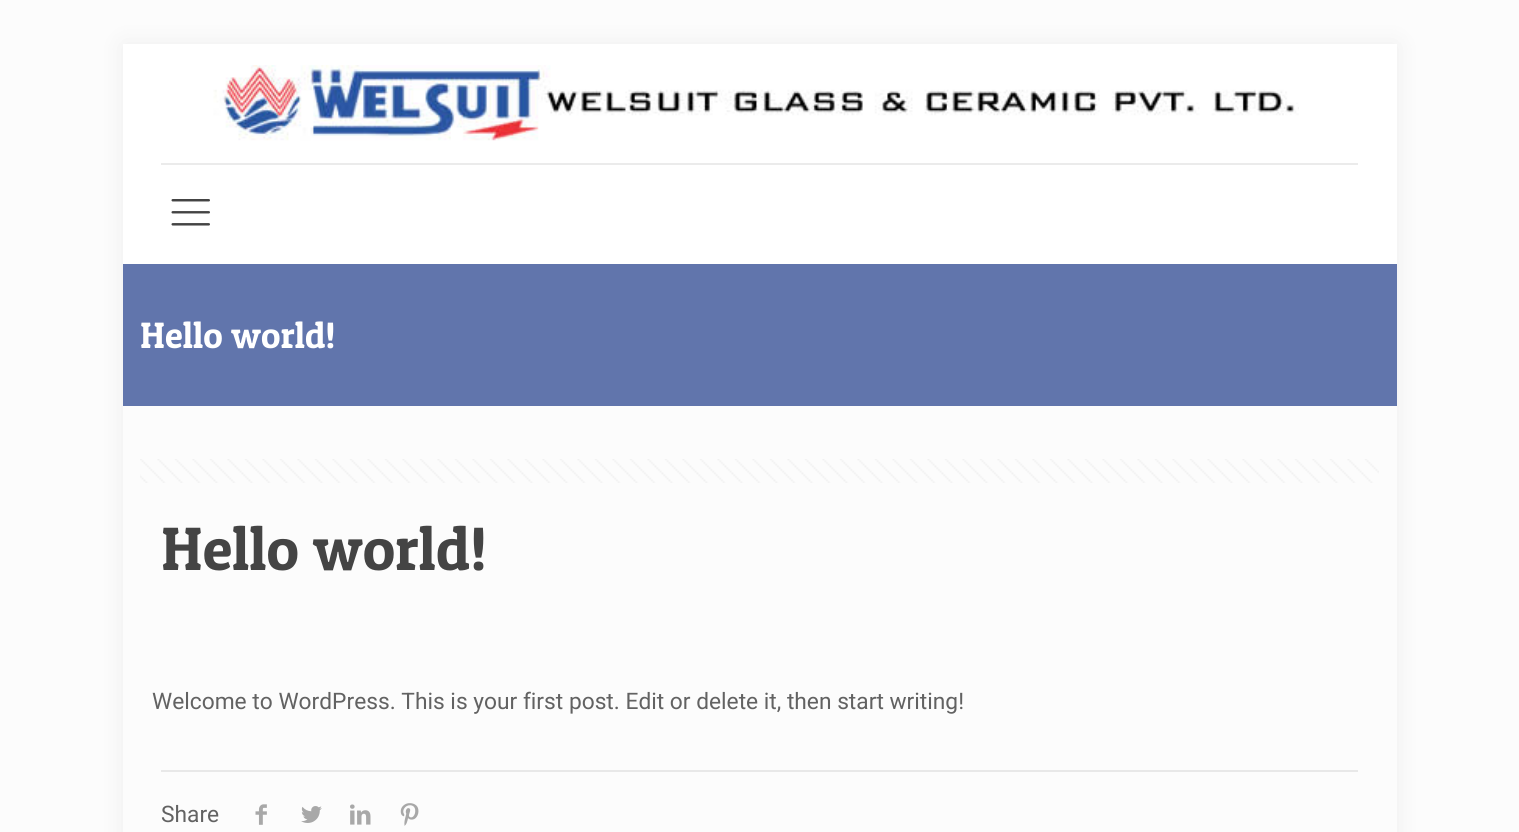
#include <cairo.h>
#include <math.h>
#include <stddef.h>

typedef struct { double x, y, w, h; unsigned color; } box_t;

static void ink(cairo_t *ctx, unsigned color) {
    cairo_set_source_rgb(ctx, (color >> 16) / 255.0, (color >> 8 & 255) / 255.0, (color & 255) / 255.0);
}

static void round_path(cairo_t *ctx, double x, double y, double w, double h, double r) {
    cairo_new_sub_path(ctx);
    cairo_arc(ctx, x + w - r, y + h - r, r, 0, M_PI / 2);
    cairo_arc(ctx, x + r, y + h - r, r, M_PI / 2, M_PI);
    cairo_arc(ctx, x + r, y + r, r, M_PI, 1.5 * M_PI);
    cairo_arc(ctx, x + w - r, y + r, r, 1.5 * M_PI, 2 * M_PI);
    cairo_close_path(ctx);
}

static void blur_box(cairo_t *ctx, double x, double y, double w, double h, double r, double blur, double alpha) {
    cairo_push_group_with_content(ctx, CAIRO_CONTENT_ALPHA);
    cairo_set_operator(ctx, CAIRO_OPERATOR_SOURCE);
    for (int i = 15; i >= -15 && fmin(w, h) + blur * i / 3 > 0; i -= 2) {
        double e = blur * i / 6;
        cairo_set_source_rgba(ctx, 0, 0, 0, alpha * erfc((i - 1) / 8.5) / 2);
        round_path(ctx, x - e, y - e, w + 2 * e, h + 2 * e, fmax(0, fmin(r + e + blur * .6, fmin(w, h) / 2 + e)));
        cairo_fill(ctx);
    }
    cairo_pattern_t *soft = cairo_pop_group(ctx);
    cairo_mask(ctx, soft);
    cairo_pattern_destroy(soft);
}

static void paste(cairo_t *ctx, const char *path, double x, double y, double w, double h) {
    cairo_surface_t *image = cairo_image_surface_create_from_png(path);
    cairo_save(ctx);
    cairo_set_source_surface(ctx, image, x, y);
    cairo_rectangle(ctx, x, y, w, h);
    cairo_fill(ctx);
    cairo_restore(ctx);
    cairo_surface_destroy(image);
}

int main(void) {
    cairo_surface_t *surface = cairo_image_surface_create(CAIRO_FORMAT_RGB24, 1519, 832);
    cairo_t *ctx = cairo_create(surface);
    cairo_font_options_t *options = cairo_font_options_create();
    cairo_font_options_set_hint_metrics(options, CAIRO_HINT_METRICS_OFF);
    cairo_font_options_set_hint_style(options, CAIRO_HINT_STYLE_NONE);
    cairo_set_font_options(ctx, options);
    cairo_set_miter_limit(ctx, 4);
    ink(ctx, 0xFCFCFC);
    cairo_paint(ctx);
    ink(ctx, 0x000000);
    blur_box(ctx, 123, 44, 1274, 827, 0, 13, 0.06);
    {
        static const box_t items[] = {
            {123, 406, 1274, 426, 0xFCFCFC},
            {123, 44, 1274, 220, 0xFFFFFF},
            {161, 163, 1197, 2, 0xEBEBEB},
        };
        for (size_t i = 0; i < sizeof items / sizeof *items; i++) {
            ink(ctx, items[i].color);
            cairo_rectangle(ctx, items[i].x, items[i].y, items[i].w, items[i].h);
            cairo_fill(ctx);
        }
    }
    paste(ctx, "media/1.png", 213, 65, 1086, 76);
    paste(ctx, "media/2.png", 171, 199, 39, 27);
    ink(ctx, 0x6175AC);
    cairo_rectangle(ctx, 123, 264, 1274, 142);
    cairo_fill(ctx);
    cairo_select_font_face(ctx, "Patua One", CAIRO_FONT_SLANT_NORMAL, CAIRO_FONT_WEIGHT_NORMAL);
    cairo_set_font_size(ctx, 36.75);
    ink(ctx, 0xFFFFFF);
    cairo_move_to(ctx, 140, 348);
    cairo_show_text(ctx, "Hello world!");
    paste(ctx, "media/3.png", 140, 459, 1239, 24);
    cairo_set_font_size(ctx, 61.25);
    ink(ctx, 0x444444);
    cairo_move_to(ctx, 161, 570);
    cairo_show_text(ctx, "Hello world!");
    cairo_select_font_face(ctx, "Roboto", CAIRO_FONT_SLANT_NORMAL, CAIRO_FONT_WEIGHT_NORMAL);
    cairo_set_font_size(ctx, 22.75);
    ink(ctx, 0x626262);
    cairo_move_to(ctx, 152, 709);
    cairo_show_text(ctx, "Welcome to WordPress. This is your first post. Edit or delete it, then start writing!");
    ink(ctx, 0xE8E8E8);
    cairo_rectangle(ctx, 161, 770, 1197, 2);
    cairo_fill(ctx);
    ink(ctx, 0x626262);
    cairo_move_to(ctx, 161, 822);
    cairo_show_text(ctx, "Share");
    paste(ctx, "media/4.png", 255, 804, 12, 21);
    paste(ctx, "media/5.png", 301, 806, 21, 17);
    paste(ctx, "media/6.png", 350, 804, 21, 21);
    paste(ctx, "media/7.png", 400, 803, 19, 23);
    cairo_surface_write_to_png(surface, "image.png");
    cairo_font_options_destroy(options);
    cairo_destroy(ctx);
    cairo_surface_destroy(surface);
    return 0;
}
